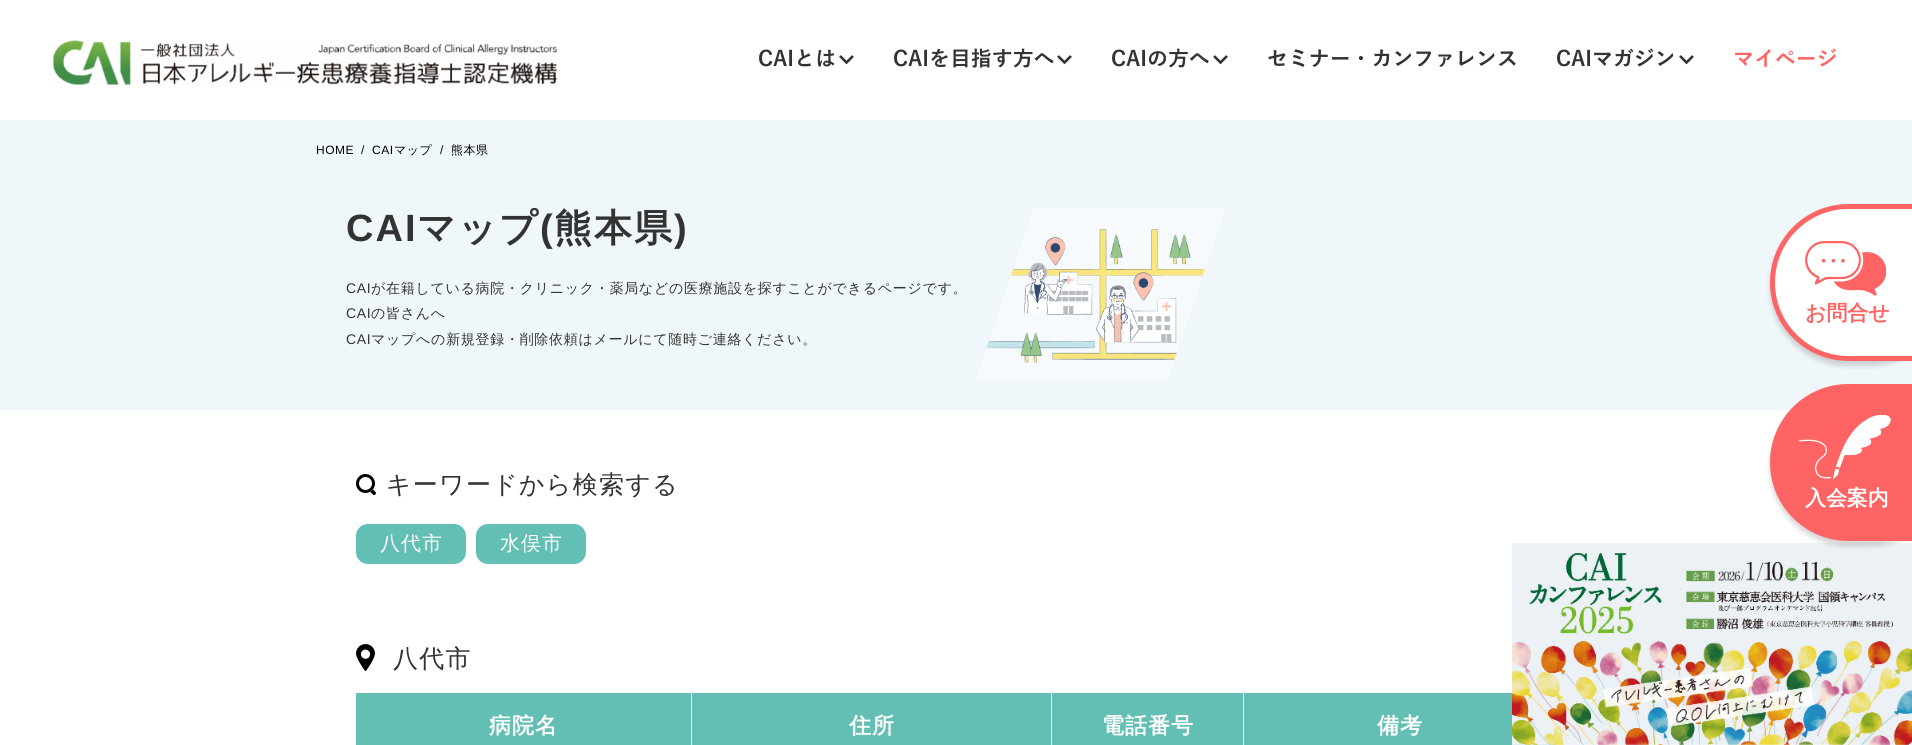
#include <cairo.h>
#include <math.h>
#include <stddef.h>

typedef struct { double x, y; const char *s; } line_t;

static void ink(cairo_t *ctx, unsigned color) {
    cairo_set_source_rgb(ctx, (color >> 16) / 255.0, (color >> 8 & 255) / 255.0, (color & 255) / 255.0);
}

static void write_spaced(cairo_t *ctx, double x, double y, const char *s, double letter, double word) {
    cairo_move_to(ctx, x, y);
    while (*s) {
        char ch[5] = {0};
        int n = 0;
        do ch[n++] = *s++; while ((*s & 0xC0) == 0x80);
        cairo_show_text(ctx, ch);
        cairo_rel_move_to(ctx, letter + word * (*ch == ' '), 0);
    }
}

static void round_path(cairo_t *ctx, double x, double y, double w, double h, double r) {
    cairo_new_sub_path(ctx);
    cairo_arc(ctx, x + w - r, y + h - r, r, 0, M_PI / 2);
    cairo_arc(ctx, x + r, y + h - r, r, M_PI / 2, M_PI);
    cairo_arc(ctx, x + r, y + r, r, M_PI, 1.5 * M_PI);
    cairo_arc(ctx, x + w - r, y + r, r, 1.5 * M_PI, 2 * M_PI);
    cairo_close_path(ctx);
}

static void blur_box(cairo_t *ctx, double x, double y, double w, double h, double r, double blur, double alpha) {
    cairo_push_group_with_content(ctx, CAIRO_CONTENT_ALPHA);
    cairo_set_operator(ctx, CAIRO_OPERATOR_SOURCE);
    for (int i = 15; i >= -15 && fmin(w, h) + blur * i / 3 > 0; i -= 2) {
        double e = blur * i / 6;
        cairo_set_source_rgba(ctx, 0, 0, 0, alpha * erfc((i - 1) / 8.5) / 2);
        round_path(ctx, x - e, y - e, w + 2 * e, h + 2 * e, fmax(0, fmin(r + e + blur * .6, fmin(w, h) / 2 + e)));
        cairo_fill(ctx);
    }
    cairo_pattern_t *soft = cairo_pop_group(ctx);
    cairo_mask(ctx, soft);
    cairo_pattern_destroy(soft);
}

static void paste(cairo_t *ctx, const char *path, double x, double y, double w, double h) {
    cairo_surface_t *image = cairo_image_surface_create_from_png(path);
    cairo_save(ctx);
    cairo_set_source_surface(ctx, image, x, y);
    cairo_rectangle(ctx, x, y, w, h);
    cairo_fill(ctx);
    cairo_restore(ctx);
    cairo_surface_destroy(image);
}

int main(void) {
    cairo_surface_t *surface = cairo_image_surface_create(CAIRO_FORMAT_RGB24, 1912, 745);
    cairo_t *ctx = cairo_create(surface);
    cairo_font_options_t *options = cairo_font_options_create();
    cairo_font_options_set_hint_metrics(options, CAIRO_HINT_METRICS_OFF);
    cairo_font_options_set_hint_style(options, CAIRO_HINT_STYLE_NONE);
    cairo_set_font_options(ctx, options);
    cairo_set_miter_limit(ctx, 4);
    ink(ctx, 0xFFFFFF);
    cairo_paint(ctx);
    paste(ctx, "media/1.png", 53, 40, 505, 45);
    cairo_select_font_face(ctx, "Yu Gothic", CAIRO_FONT_SLANT_NORMAL, CAIRO_FONT_WEIGHT_BOLD);
    cairo_set_font_size(ctx, 20.9);
    ink(ctx, 0x333333);
    cairo_move_to(ctx, 758, 66);
    cairo_show_text(ctx, "CAIとは");
    cairo_new_path(ctx);
    cairo_move_to(ctx, 840, 56);
    cairo_line_to(ctx, 846.5, 62.5);
    cairo_line_to(ctx, 853, 56);
    cairo_set_line_width(ctx, 2.6);
    cairo_stroke(ctx);
    cairo_move_to(ctx, 893, 66);
    cairo_show_text(ctx, "CAIを目指す方へ");
    cairo_new_path(ctx);
    cairo_move_to(ctx, 1058, 56);
    cairo_line_to(ctx, 1064.5, 62.5);
    cairo_line_to(ctx, 1071, 56);
    cairo_stroke(ctx);
    cairo_move_to(ctx, 1111, 66);
    cairo_show_text(ctx, "CAIの方へ");
    cairo_new_path(ctx);
    cairo_move_to(ctx, 1214, 56);
    cairo_line_to(ctx, 1220.5, 62.5);
    cairo_line_to(ctx, 1227, 56);
    cairo_stroke(ctx);
    cairo_move_to(ctx, 1267, 66);
    cairo_show_text(ctx, "セミナー・カンファレンス");
    cairo_move_to(ctx, 1556, 66);
    cairo_show_text(ctx, "CAIマガジン");
    cairo_new_path(ctx);
    cairo_move_to(ctx, 1680, 56);
    cairo_line_to(ctx, 1686.5, 62.5);
    cairo_line_to(ctx, 1693, 56);
    cairo_stroke(ctx);
    ink(ctx, 0xFF6464);
    cairo_move_to(ctx, 1733, 66);
    cairo_show_text(ctx, "マイページ");
    ink(ctx, 0x63BFB4);
    cairo_rectangle(ctx, 1244, 693, 312, 52);
    cairo_fill(ctx);
    paste(ctx, "media/2.png", 1512, 543, 400, 202);
    ink(ctx, 0xF0F7FA);
    cairo_rectangle(ctx, 0, 120, 1912, 290);
    cairo_fill(ctx);
    cairo_select_font_face(ctx, "Liberation Sans", CAIRO_FONT_SLANT_NORMAL, CAIRO_FONT_WEIGHT_NORMAL);
    cairo_set_font_size(ctx, 12);
    ink(ctx, 0x000000);
    {
        static const line_t items[] = {
            {316, 154, "HOME"},
            {361, 154, "/"},
            {372, 154, "CAI"},
        };
        for (size_t i = 0; i < sizeof items / sizeof *items; i++) {
            write_spaced(ctx, items[i].x, items[i].y, items[i].s, 0.5, 0);
        }
    }
    cairo_select_font_face(ctx, "WenQuanYi Zen Hei Medium", CAIRO_FONT_SLANT_NORMAL, CAIRO_FONT_WEIGHT_NORMAL);
    write_spaced(ctx, 394, 154, "マップ", 0.5, 0);
    cairo_select_font_face(ctx, "Liberation Sans", CAIRO_FONT_SLANT_NORMAL, CAIRO_FONT_WEIGHT_NORMAL);
    write_spaced(ctx, 440, 154, "/", 0.5, 0);
    cairo_select_font_face(ctx, "WenQuanYi Zen Hei Medium", CAIRO_FONT_SLANT_NORMAL, CAIRO_FONT_WEIGHT_NORMAL);
    write_spaced(ctx, 451, 154, "熊本県", 0.5, 0);
    cairo_select_font_face(ctx, "Liberation Sans", CAIRO_FONT_SLANT_NORMAL, CAIRO_FONT_WEIGHT_BOLD);
    cairo_set_font_size(ctx, 38);
    ink(ctx, 0x333333);
    write_spaced(ctx, 346, 241, "CAI", 2, 0);
    cairo_select_font_face(ctx, "WenQuanYi Zen Hei", CAIRO_FONT_SLANT_NORMAL, CAIRO_FONT_WEIGHT_BOLD);
    write_spaced(ctx, 417, 241, "マップ", 2, 0);
    cairo_select_font_face(ctx, "Liberation Sans", CAIRO_FONT_SLANT_NORMAL, CAIRO_FONT_WEIGHT_BOLD);
    write_spaced(ctx, 540, 241, "(", 2, 0);
    cairo_select_font_face(ctx, "WenQuanYi Zen Hei", CAIRO_FONT_SLANT_NORMAL, CAIRO_FONT_WEIGHT_BOLD);
    write_spaced(ctx, 554, 241, "熊本県", 2, 0);
    cairo_select_font_face(ctx, "Liberation Sans", CAIRO_FONT_SLANT_NORMAL, CAIRO_FONT_WEIGHT_BOLD);
    write_spaced(ctx, 674, 241, ")", 2, 0);
    cairo_select_font_face(ctx, "Liberation Sans", CAIRO_FONT_SLANT_NORMAL, CAIRO_FONT_WEIGHT_NORMAL);
    cairo_set_font_size(ctx, 14);
    write_spaced(ctx, 346, 293, "CAI", 0.7, 0);
    cairo_select_font_face(ctx, "WenQuanYi Zen Hei Medium", CAIRO_FONT_SLANT_NORMAL, CAIRO_FONT_WEIGHT_NORMAL);
    write_spaced(ctx, 371, 293, "が在籍している病院・クリニック・薬局などの医療施設を探すことができるページです。", 0.7, 0);
    cairo_select_font_face(ctx, "Liberation Sans", CAIRO_FONT_SLANT_NORMAL, CAIRO_FONT_WEIGHT_NORMAL);
    write_spaced(ctx, 346, 318, "CAI", 0.7, 0);
    cairo_select_font_face(ctx, "WenQuanYi Zen Hei Medium", CAIRO_FONT_SLANT_NORMAL, CAIRO_FONT_WEIGHT_NORMAL);
    write_spaced(ctx, 371, 318, "の皆さんへ", 0.7, 0);
    cairo_select_font_face(ctx, "Liberation Sans", CAIRO_FONT_SLANT_NORMAL, CAIRO_FONT_WEIGHT_NORMAL);
    write_spaced(ctx, 346, 344, "CAI", 0.7, 0);
    cairo_select_font_face(ctx, "WenQuanYi Zen Hei Medium", CAIRO_FONT_SLANT_NORMAL, CAIRO_FONT_WEIGHT_NORMAL);
    write_spaced(ctx, 371, 344, "マップへの新規登録・削除依頼はメールにて随時ご連絡ください。", 0.7, 0);
    paste(ctx, "media/3.png", 976, 207, 249, 173);
    paste(ctx, "media/4.png", 356, 474, 20, 21);
    cairo_set_font_size(ctx, 25);
    write_spaced(ctx, 386, 493, "キーワードから検索する", 1.25, 0);
    ink(ctx, 0x63BFB4);
    round_path(ctx, 356, 524, 110, 40, 12);
    cairo_fill(ctx);
    cairo_set_font_size(ctx, 20);
    ink(ctx, 0xFFFFFF);
    write_spaced(ctx, 380, 550, "八代市", 1, 0);
    ink(ctx, 0x63BFB4);
    round_path(ctx, 476, 524, 110, 40, 12);
    cairo_fill(ctx);
    ink(ctx, 0xFFFFFF);
    write_spaced(ctx, 500, 550, "水俣市", 1, 0);
    paste(ctx, "media/5.png", 356, 644, 19, 27);
    cairo_set_font_size(ctx, 25);
    ink(ctx, 0x333333);
    write_spaced(ctx, 393, 667, "八代市", 1.25, 0);
    ink(ctx, 0x63BFB4);
    cairo_rectangle(ctx, 356, 693, 335, 52);
    cairo_fill(ctx);
    cairo_select_font_face(ctx, "WenQuanYi Zen Hei", CAIRO_FONT_SLANT_NORMAL, CAIRO_FONT_WEIGHT_BOLD);
    cairo_set_font_size(ctx, 22);
    ink(ctx, 0xFFFFFF);
    write_spaced(ctx, 489, 733, "病院名", 1, 0);
    ink(ctx, 0x63BFB4);
    cairo_rectangle(ctx, 692, 693, 359, 52);
    cairo_fill(ctx);
    ink(ctx, 0xFFFFFF);
    write_spaced(ctx, 849, 733, "住所", 1, 0);
    ink(ctx, 0x63BFB4);
    cairo_rectangle(ctx, 1052, 693, 191, 52);
    cairo_fill(ctx);
    ink(ctx, 0xFFFFFF);
    write_spaced(ctx, 1102, 733, "電話番号", 1, 0);
    write_spaced(ctx, 1377, 733, "備考", 1, 0);
    ink(ctx, 0x000000);
    blur_box(ctx, 1770, 209, 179, 157, 78.5, 2.5, 0.16);
    ink(ctx, 0xFFFFFF);
    cairo_new_path(ctx);
    cairo_move_to(ctx, 1848.5, 206.5);
    cairo_line_to(ctx, 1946.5, 206.5);
    cairo_line_to(ctx, 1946.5, 358.5);
    cairo_line_to(ctx, 1848.5, 358.5);
    cairo_curve_to(ctx, 1806.5, 358.5, 1772.5, 324.5, 1772.5, 282.5);
    cairo_curve_to(ctx, 1772.5, 240.5, 1806.5, 206.5, 1848.5, 206.5);
    cairo_close_path(ctx);
    cairo_fill_preserve(ctx);
    ink(ctx, 0xFF6464);
    cairo_set_line_width(ctx, 5);
    cairo_stroke(ctx);
    paste(ctx, "media/6.png", 1805, 241, 81, 55);
    cairo_set_font_size(ctx, 20.9);
    cairo_move_to(ctx, 1805, 320);
    cairo_show_text(ctx, "お問合せ");
    ink(ctx, 0x000000);
    blur_box(ctx, 1770, 389, 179, 157, 78.5, 2.5, 0.16);
    ink(ctx, 0xFF6464);
    cairo_new_path(ctx);
    cairo_move_to(ctx, 1848.5, 386.5);
    cairo_line_to(ctx, 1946.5, 386.5);
    cairo_line_to(ctx, 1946.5, 538.5);
    cairo_line_to(ctx, 1848.5, 538.5);
    cairo_curve_to(ctx, 1806.5, 538.5, 1772.5, 504.5, 1772.5, 462.5);
    cairo_curve_to(ctx, 1772.5, 420.5, 1806.5, 386.5, 1848.5, 386.5);
    cairo_close_path(ctx);
    cairo_fill_preserve(ctx);
    cairo_stroke(ctx);
    ink(ctx, 0xFFFFFF);
    cairo_move_to(ctx, 1805, 505);
    cairo_show_text(ctx, "入会案内");
    paste(ctx, "media/7.png", 1799, 415, 92, 74);
    cairo_surface_write_to_png(surface, "image.png");
    cairo_font_options_destroy(options);
    cairo_destroy(ctx);
    cairo_surface_destroy(surface);
    return 0;
}
